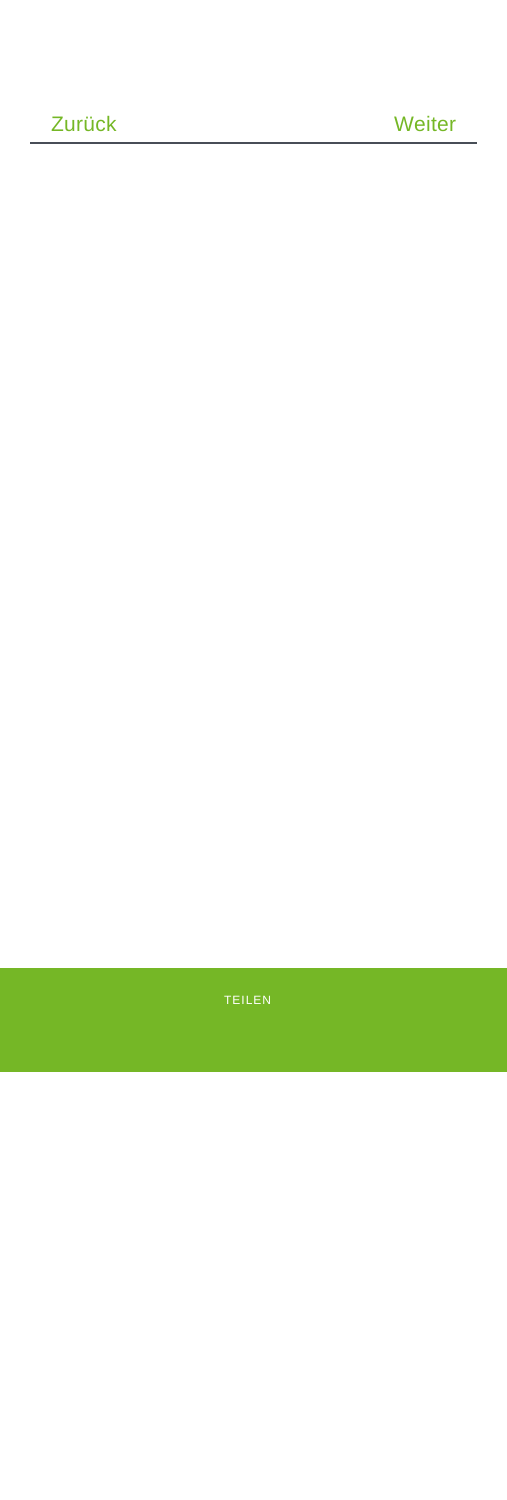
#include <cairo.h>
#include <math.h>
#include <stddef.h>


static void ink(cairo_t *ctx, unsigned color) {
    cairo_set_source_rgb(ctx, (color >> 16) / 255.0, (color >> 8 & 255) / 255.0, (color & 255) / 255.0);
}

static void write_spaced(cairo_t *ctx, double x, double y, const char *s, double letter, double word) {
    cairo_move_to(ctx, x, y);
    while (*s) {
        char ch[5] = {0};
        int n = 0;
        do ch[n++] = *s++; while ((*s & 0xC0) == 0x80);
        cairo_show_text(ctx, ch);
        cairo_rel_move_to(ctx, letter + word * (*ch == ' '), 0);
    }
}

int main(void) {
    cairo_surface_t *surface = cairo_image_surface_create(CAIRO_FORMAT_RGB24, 507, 1500);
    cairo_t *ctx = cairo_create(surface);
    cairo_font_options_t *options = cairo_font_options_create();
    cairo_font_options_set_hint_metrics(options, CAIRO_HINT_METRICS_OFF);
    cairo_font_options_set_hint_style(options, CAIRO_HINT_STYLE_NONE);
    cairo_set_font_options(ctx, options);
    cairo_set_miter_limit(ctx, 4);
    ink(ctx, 0xFFFFFF);
    cairo_paint(ctx);
    cairo_select_font_face(ctx, "Liberation Sans", CAIRO_FONT_SLANT_NORMAL, CAIRO_FONT_WEIGHT_NORMAL);
    cairo_set_font_size(ctx, 21);
    ink(ctx, 0x75B726);
    write_spaced(ctx, 51, 131, "Zurück", 0.25, 0);
    write_spaced(ctx, 394, 131, "Weiter", 0.25, 0);
    ink(ctx, 0x484E57);
    cairo_rectangle(ctx, 30, 142, 447, 2);
    cairo_fill(ctx);
    ink(ctx, 0x75B726);
    cairo_rectangle(ctx, 0, 968, 507, 104);
    cairo_fill(ctx);
    cairo_set_font_size(ctx, 12);
    ink(ctx, 0xFFFFFF);
    write_spaced(ctx, 224, 1004, "TEILEN", 1, 0);
    cairo_surface_write_to_png(surface, "image.png");
    cairo_font_options_destroy(options);
    cairo_destroy(ctx);
    cairo_surface_destroy(surface);
    return 0;
}
